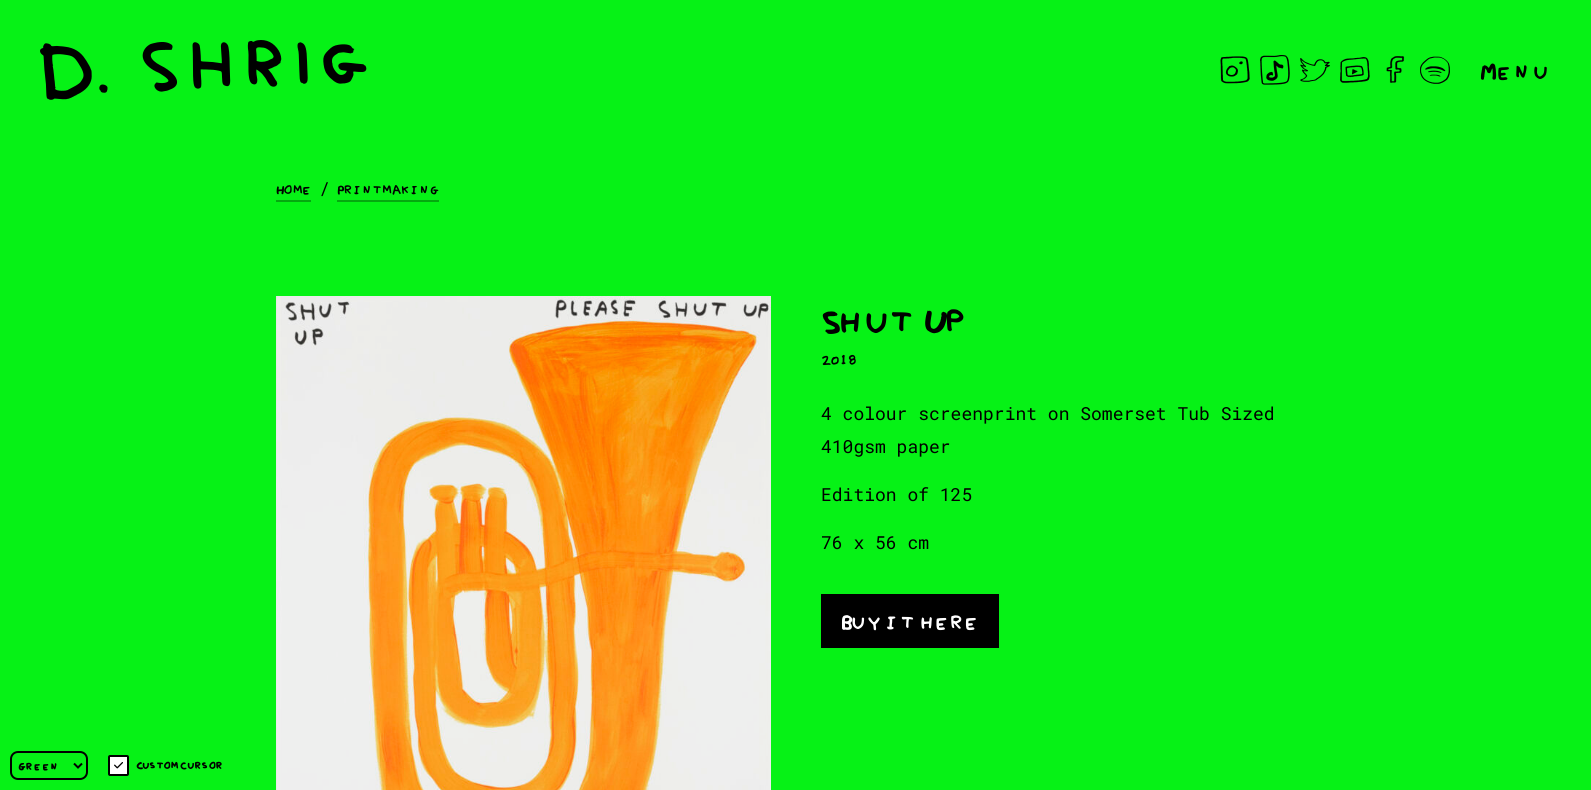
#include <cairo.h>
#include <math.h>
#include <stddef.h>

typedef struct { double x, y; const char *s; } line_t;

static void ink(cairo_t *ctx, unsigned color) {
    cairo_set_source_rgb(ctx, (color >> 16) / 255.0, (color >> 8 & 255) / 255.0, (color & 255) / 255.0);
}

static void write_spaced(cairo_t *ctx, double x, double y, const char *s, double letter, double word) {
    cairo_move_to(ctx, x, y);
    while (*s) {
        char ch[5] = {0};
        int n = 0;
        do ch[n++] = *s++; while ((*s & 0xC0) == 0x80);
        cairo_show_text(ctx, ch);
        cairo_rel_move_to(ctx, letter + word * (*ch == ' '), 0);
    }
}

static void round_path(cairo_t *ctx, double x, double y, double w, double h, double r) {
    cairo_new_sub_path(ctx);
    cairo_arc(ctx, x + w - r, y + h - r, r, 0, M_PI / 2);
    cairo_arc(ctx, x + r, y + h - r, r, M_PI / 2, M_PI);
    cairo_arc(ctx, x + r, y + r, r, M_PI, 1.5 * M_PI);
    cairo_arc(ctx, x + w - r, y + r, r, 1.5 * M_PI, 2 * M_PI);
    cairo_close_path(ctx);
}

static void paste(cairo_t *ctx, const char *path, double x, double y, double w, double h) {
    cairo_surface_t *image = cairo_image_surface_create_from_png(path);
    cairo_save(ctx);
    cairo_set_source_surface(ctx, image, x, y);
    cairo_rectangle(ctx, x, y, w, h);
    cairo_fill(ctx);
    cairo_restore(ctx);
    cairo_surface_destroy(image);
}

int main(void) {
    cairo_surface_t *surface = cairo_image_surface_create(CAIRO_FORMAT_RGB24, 1591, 790);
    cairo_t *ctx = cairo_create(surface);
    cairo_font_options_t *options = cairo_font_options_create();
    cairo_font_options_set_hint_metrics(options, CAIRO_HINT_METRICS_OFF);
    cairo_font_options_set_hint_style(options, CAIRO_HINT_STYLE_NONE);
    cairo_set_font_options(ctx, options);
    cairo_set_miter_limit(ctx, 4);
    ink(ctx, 0x06F216);
    cairo_paint(ctx);
    paste(ctx, "media/1.png", 40, 40, 327, 60);
    paste(ctx, "media/2.png", 1220, 56, 30, 28);
    paste(ctx, "media/3.png", 1260, 55, 30, 30);
    paste(ctx, "media/4.png", 1300, 58, 30, 24);
    paste(ctx, "media/5.png", 1340, 57, 30, 26);
    paste(ctx, "media/6.png", 1386, 56, 19, 27);
    paste(ctx, "media/7.png", 1420, 56, 30, 28);
    cairo_select_font_face(ctx, "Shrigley", CAIRO_FONT_SLANT_NORMAL, CAIRO_FONT_WEIGHT_NORMAL);
    cairo_set_font_size(ctx, 30);
    ink(ctx, 0x000000);
    cairo_move_to(ctx, 1480, 79);
    cairo_show_text(ctx, "Menu");
    round_path(ctx, 11, 752, 76, 27, 7);
    cairo_stroke(ctx);
    cairo_new_path(ctx);
    cairo_move_to(ctx, 74, 763.5);
    cairo_line_to(ctx, 78, 767.5);
    cairo_line_to(ctx, 82, 763.5);
    cairo_stroke(ctx);
    cairo_select_font_face(ctx, "Shrigley", CAIRO_FONT_SLANT_NORMAL, CAIRO_FONT_WEIGHT_BOLD);
    cairo_set_font_size(ctx, 14);
    cairo_move_to(ctx, 18, 770);
    cairo_show_text(ctx, "Green");
    ink(ctx, 0xFFFFFF);
    round_path(ctx, 109, 756, 19, 19, 1);
    cairo_fill_preserve(ctx);
    ink(ctx, 0x000000);
    cairo_stroke(ctx);
    paste(ctx, "media/8.png", 114, 762, 9, 7);
    write_spaced(ctx, 136, 769, "Custom cursor", -1.25, 0);
    cairo_select_font_face(ctx, "Shrigley", CAIRO_FONT_SLANT_NORMAL, CAIRO_FONT_WEIGHT_NORMAL);
    cairo_set_font_size(ctx, 18);
    write_spaced(ctx, 276, 194, "Home", -1.25, 0);
    ink(ctx, 0x04A90F);
    cairo_rectangle(ctx, 276, 200, 35, 2);
    cairo_fill(ctx);
    cairo_select_font_face(ctx, "Roboto Mono", CAIRO_FONT_SLANT_NORMAL, CAIRO_FONT_WEIGHT_NORMAL);
    ink(ctx, 0x000000);
    write_spaced(ctx, 319, 195, "/", -1.25, 0);
    cairo_select_font_face(ctx, "Shrigley", CAIRO_FONT_SLANT_NORMAL, CAIRO_FONT_WEIGHT_NORMAL);
    write_spaced(ctx, 337, 194, "Printmaking", -1.25, 0);
    ink(ctx, 0x04A90F);
    cairo_rectangle(ctx, 337, 200, 102, 2);
    cairo_fill(ctx);
    paste(ctx, "media/9.png", 276, 296, 495, 494);
    cairo_set_font_size(ctx, 48);
    ink(ctx, 0x000000);
    write_spaced(ctx, 821, 333, "Shut Up", -3.5, 0);
    cairo_set_font_size(ctx, 20);
    write_spaced(ctx, 821, 365, "2018", -1.5, 0);
    cairo_select_font_face(ctx, "Roboto Mono", CAIRO_FONT_SLANT_NORMAL, CAIRO_FONT_WEIGHT_NORMAL);
    cairo_set_font_size(ctx, 18);
    {
        static const line_t items[] = {
            {821, 420, "4 colour screenprint on Somerset Tub Sized"},
            {821, 453, "410gsm paper"},
            {821, 501, "Edition of 125"},
            {821, 549, "76 x 56 cm"},
        };
        for (size_t i = 0; i < sizeof items / sizeof *items; i++) {
            cairo_move_to(ctx, items[i].x, items[i].y);
            cairo_show_text(ctx, items[i].s);
        }
    }
    cairo_rectangle(ctx, 821, 594, 178, 54);
    cairo_fill(ctx);
    cairo_select_font_face(ctx, "Shrigley", CAIRO_FONT_SLANT_NORMAL, CAIRO_FONT_WEIGHT_NORMAL);
    cairo_set_font_size(ctx, 28);
    ink(ctx, 0xFFFFFF);
    write_spaced(ctx, 841, 629, "Buy it here", -2, 0);
    cairo_surface_write_to_png(surface, "image.png");
    cairo_font_options_destroy(options);
    cairo_destroy(ctx);
    cairo_surface_destroy(surface);
    return 0;
}
